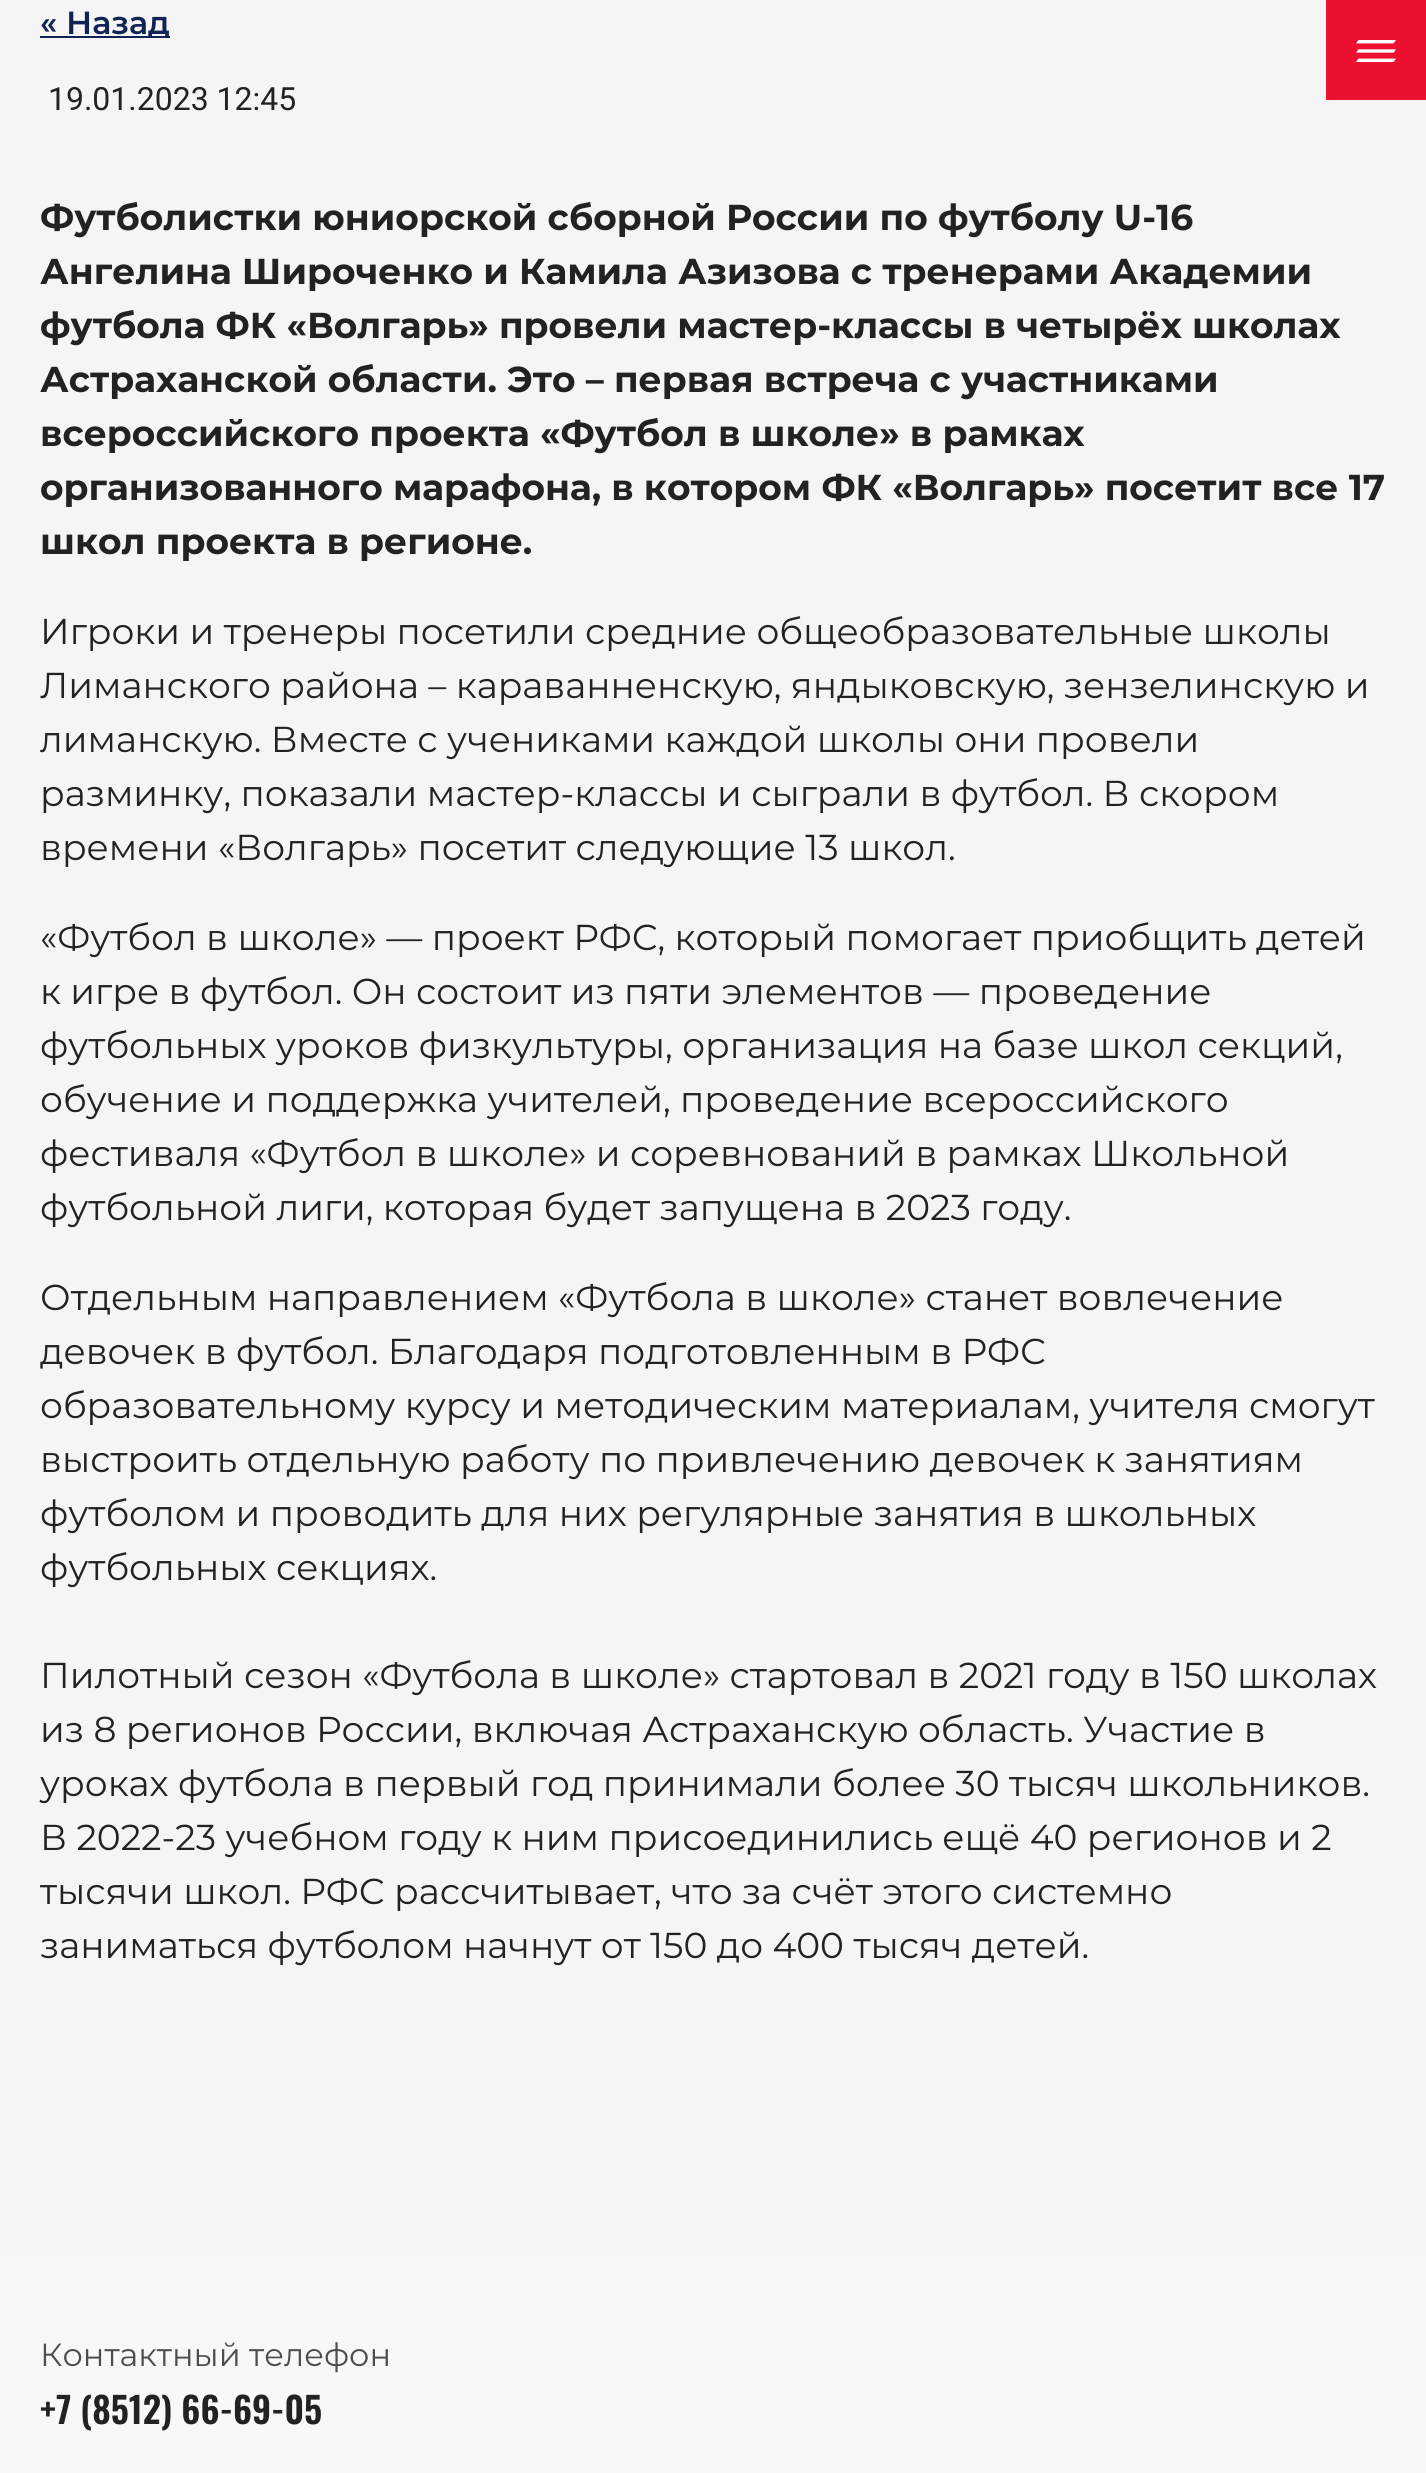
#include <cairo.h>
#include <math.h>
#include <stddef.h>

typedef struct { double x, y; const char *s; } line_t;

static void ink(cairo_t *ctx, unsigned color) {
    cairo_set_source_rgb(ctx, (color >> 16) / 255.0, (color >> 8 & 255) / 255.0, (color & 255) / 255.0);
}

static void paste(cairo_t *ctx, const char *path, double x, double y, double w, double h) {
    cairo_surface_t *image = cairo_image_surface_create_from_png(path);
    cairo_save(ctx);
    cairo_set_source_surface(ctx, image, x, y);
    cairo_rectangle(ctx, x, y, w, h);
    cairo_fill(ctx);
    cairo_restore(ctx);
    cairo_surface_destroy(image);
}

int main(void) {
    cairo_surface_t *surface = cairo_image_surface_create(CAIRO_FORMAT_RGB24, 1426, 2473);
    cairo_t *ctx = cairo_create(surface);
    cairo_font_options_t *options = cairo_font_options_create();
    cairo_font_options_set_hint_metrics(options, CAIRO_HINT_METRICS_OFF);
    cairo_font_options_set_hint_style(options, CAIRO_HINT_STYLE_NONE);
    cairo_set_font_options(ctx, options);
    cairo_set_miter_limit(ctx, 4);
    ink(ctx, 0xF5F5F5);
    cairo_paint(ctx);
    ink(ctx, 0xEC1130);
    cairo_rectangle(ctx, 1326, 0, 100, 100);
    cairo_fill(ctx);
    paste(ctx, "media/1.png", 1356, 40, 40, 22);
    ink(ctx, 0x122455);
    cairo_rectangle(ctx, 40, 36, 130, 2);
    cairo_fill(ctx);
    cairo_select_font_face(ctx, "Montserrat SemiBold", CAIRO_FONT_SLANT_NORMAL, CAIRO_FONT_WEIGHT_NORMAL);
    cairo_set_font_size(ctx, 32);
    cairo_move_to(ctx, 40, 34);
    cairo_show_text(ctx, "« Назад");
    cairo_select_font_face(ctx, "Roboto", CAIRO_FONT_SLANT_NORMAL, CAIRO_FONT_WEIGHT_NORMAL);
    ink(ctx, 0x222222);
    cairo_move_to(ctx, 48, 110);
    cairo_show_text(ctx, "19.01.2023 12:45");
    cairo_select_font_face(ctx, "Montserrat", CAIRO_FONT_SLANT_NORMAL, CAIRO_FONT_WEIGHT_BOLD);
    cairo_set_font_size(ctx, 36);
    {
        static const line_t items[] = {
            {40, 230, "Футболистки юниорской сборной России по футболу U-16"},
            {40, 284, "Ангелина Широченко и Камила Азизова с тренерами Академии"},
            {40, 338, "футбола ФК «Волгарь» провели мастер-классы в четырёх школах"},
            {40, 392, "Астраханской области. Это – первая встреча с участниками"},
            {40, 446, "всероссийского проекта «Футбол в школе» в рамках"},
            {40, 500, "организованного марафона, в котором ФК «Волгарь» посетит все 17"},
            {40, 554, "школ проекта в регионе."},
        };
        for (size_t i = 0; i < sizeof items / sizeof *items; i++) {
            cairo_move_to(ctx, items[i].x, items[i].y);
            cairo_show_text(ctx, items[i].s);
        }
    }
    cairo_select_font_face(ctx, "Montserrat", CAIRO_FONT_SLANT_NORMAL, CAIRO_FONT_WEIGHT_NORMAL);
    {
        static const line_t items[] = {
            {40, 644, "Игроки и тренеры посетили средние общеобразовательные школы"},
            {40, 698, "Лиманского района – караванненскую, яндыковскую, зензелинскую и"},
            {40, 752, "лиманскую. Вместе с учениками каждой школы они провели"},
            {40, 806, "разминку, показали мастер-классы и сыграли в футбол. В скором"},
            {40, 860, "времени «Волгарь» посетит следующие 13 школ."},
            {40, 950, "«Футбол в школе» — проект РФС, который помогает приобщить детей"},
            {40, 1004, "к игре в футбол. Он состоит из пяти элементов — проведение"},
            {40, 1058, "футбольных уроков физкультуры, организация на базе школ секций,"},
            {40, 1112, "обучение и поддержка учителей, проведение всероссийского"},
            {40, 1166, "фестиваля «Футбол в школе» и соревнований в рамках Школьной"},
            {40, 1220, "футбольной лиги, которая будет запущена в 2023 году."},
            {40, 1310, "Отдельным направлением «Футбола в школе» станет вовлечение"},
            {40, 1364, "девочек в футбол. Благодаря подготовленным в РФС"},
            {40, 1418, "образовательному курсу и методическим материалам, учителя смогут"},
            {40, 1472, "выстроить отдельную работу по привлечению девочек к занятиям"},
            {40, 1526, "футболом и проводить для них регулярные занятия в школьных"},
            {40, 1580, "футбольных секциях."},
            {40, 1688, "Пилотный сезон «Футбола в школе» стартовал в 2021 году в 150 школах"},
            {40, 1742, "из 8 регионов России, включая Астраханскую область. Участие в"},
            {40, 1796, "уроках футбола в первый год принимали более 30 тысяч школьников."},
            {40, 1850, "В 2022-23 учебном году к ним присоединились ещё 40 регионов и 2"},
            {40, 1904, "тысячи школ. РФС рассчитывает, что за счёт этого системно"},
            {40, 1958, "заниматься футболом начнут от 150 до 400 тысяч детей."},
        };
        for (size_t i = 0; i < sizeof items / sizeof *items; i++) {
            cairo_move_to(ctx, items[i].x, items[i].y);
            cairo_show_text(ctx, items[i].s);
        }
    }
    ink(ctx, 0xF8F8F8);
    cairo_rectangle(ctx, 0, 2256, 1426, 217);
    cairo_fill(ctx);
    cairo_set_font_size(ctx, 32);
    ink(ctx, 0x4D4D4D);
    cairo_move_to(ctx, 40, 2366);
    cairo_show_text(ctx, "Контактный телефон");
    cairo_select_font_face(ctx, "Oswald SemiBold", CAIRO_FONT_SLANT_NORMAL, CAIRO_FONT_WEIGHT_NORMAL);
    cairo_set_font_size(ctx, 36);
    ink(ctx, 0x222222);
    cairo_move_to(ctx, 40, 2424);
    cairo_show_text(ctx, "+7 (8512) 66-69-05");
    cairo_surface_write_to_png(surface, "image.png");
    cairo_font_options_destroy(options);
    cairo_destroy(ctx);
    cairo_surface_destroy(surface);
    return 0;
}
